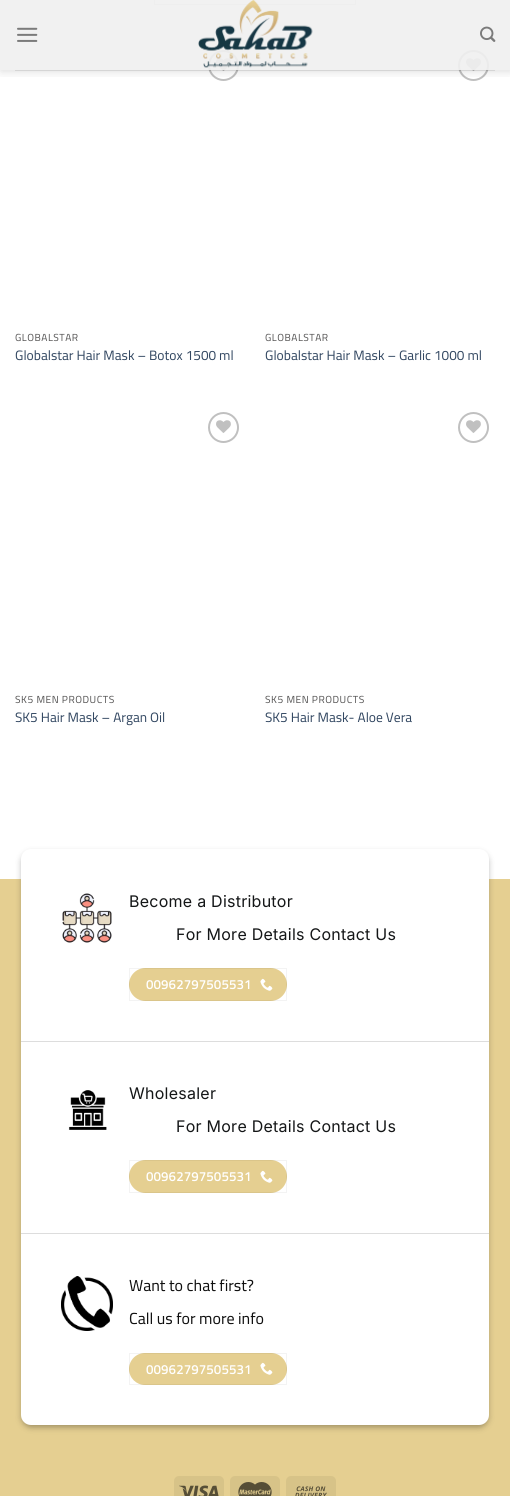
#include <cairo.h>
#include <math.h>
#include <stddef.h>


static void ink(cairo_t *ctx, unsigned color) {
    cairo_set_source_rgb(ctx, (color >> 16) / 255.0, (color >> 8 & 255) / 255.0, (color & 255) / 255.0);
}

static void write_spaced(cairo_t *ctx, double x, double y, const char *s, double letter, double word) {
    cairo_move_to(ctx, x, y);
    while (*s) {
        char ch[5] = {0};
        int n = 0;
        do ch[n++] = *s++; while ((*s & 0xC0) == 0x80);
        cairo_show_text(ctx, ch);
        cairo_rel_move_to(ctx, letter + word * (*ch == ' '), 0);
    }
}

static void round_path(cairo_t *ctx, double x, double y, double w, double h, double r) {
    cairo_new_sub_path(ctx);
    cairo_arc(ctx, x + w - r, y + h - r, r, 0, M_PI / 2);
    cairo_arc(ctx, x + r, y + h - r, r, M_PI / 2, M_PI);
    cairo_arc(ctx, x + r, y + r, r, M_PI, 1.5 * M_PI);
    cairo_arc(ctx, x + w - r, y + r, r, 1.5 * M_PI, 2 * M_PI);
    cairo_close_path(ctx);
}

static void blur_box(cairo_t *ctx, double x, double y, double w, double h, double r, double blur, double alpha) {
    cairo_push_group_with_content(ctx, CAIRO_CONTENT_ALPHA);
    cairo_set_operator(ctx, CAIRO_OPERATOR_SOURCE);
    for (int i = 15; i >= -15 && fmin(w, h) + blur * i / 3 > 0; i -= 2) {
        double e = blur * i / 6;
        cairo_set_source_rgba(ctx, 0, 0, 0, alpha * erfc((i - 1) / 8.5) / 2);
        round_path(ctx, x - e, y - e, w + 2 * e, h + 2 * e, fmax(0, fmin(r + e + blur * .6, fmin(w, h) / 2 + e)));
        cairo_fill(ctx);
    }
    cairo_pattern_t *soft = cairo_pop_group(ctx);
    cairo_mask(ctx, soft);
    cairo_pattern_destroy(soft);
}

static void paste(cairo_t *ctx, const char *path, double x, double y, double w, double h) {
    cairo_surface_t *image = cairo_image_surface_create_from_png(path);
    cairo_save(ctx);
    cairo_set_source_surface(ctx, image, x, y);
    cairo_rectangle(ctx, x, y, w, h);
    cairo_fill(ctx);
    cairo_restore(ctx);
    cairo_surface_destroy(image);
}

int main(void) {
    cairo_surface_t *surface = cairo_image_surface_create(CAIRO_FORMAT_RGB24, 510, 1496);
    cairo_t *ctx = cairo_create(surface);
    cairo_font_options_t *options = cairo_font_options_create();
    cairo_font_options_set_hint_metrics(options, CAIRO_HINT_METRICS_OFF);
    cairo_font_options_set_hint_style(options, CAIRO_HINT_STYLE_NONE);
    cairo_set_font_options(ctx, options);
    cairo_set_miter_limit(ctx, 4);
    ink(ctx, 0xFFFFFF);
    cairo_paint(ctx);
    cairo_rectangle(ctx, 154.5, -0.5, 201, 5);
    ink(ctx, 0xDDDDDD);
    cairo_set_line_width(ctx, 1);
    cairo_stroke(ctx);
    cairo_arc(ctx, 223.5, 65.5, 14.5, 0, 2 * M_PI);
    ink(ctx, 0xC0C0C0);
    cairo_set_line_width(ctx, 2);
    cairo_stroke(ctx);
    paste(ctx, "media/4.png", 216, 58, 15, 13);
    cairo_arc(ctx, 473.5, 65.5, 14.5, 0, 2 * M_PI);
    cairo_stroke(ctx);
    paste(ctx, "media/4.png", 466, 58, 15, 13);
    cairo_save(ctx);
    cairo_rectangle(ctx, 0, 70, 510, 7);
    cairo_clip(ctx);
    ink(ctx, 0x000000);
    blur_box(ctx, 1, 1, 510, 70, 0, 5, 0.15);
    cairo_restore(ctx);
    cairo_set_source_rgba(ctx, 0.941, 0.941, 0.941, 0.9);
    cairo_rectangle(ctx, 0, 0, 510, 70);
    cairo_fill(ctx);
    paste(ctx, "media/1.png", 17, 27, 21, 15);
    paste(ctx, "media/2.png", 198, 0, 115, 68);
    paste(ctx, "media/3.png", 480, 26, 16, 16);
    cairo_set_source_rgba(ctx, 0.059, 0.055, 0.055, 0.1);
    cairo_rectangle(ctx, 15, 70, 480, 1);
    cairo_fill(ctx);
    cairo_select_font_face(ctx, "Cairo", CAIRO_FONT_SLANT_NORMAL, CAIRO_FONT_WEIGHT_NORMAL);
    cairo_set_font_size(ctx, 10.25);
    ink(ctx, 0x575656);
    write_spaced(ctx, 15, 341, "GLOBALSTAR", 0.5, 0);
    cairo_set_font_size(ctx, 13.6);
    ink(ctx, 0x334862);
    cairo_move_to(ctx, 15, 360);
    cairo_show_text(ctx, "Globalstar Hair Mask – Botox 1500 ml");
    cairo_set_font_size(ctx, 10.25);
    ink(ctx, 0x575656);
    write_spaced(ctx, 265, 341, "GLOBALSTAR", 0.5, 0);
    cairo_set_font_size(ctx, 13.6);
    ink(ctx, 0x334862);
    cairo_move_to(ctx, 265, 360);
    cairo_show_text(ctx, "Globalstar Hair Mask – Garlic 1000 ml");
    cairo_new_path(ctx);
    cairo_arc(ctx, 223.5, 427.5, 14.5, 0, 2 * M_PI);
    ink(ctx, 0xC0C0C0);
    cairo_stroke(ctx);
    paste(ctx, "media/4.png", 216, 420, 15, 13);
    cairo_set_font_size(ctx, 10.25);
    ink(ctx, 0x575656);
    write_spaced(ctx, 15, 703, "SK5 MEN PRODUCTS", 0.5, 0);
    cairo_set_font_size(ctx, 13.6);
    ink(ctx, 0x334862);
    cairo_move_to(ctx, 15, 722);
    cairo_show_text(ctx, "SK5 Hair Mask – Argan Oil");
    cairo_new_path(ctx);
    cairo_arc(ctx, 473.5, 427.5, 14.5, 0, 2 * M_PI);
    ink(ctx, 0xC0C0C0);
    cairo_stroke(ctx);
    paste(ctx, "media/4.png", 466, 420, 15, 13);
    cairo_set_font_size(ctx, 10.25);
    ink(ctx, 0x575656);
    write_spaced(ctx, 265, 703, "SK5 MEN PRODUCTS", 0.5, 0);
    cairo_set_font_size(ctx, 13.6);
    ink(ctx, 0x334862);
    cairo_move_to(ctx, 265, 722);
    cairo_show_text(ctx, "SK5 Hair Mask- Aloe Vera");
    ink(ctx, 0xE5CF91);
    cairo_rectangle(ctx, 0, 879, 510, 617);
    cairo_fill(ctx);
    ink(ctx, 0xD7C388);
    round_path(ctx, 174, 1476, 50, 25, 5);
    cairo_fill(ctx);
    paste(ctx, "media/5.png", 179, 1485, 40, 11);
    round_path(ctx, 230, 1476, 50, 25, 5);
    cairo_fill(ctx);
    paste(ctx, "media/6.png", 238, 1482, 34, 14);
    round_path(ctx, 286, 1476, 50, 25, 5);
    cairo_fill(ctx);
    paste(ctx, "media/7.png", 295, 1486, 32, 10);
    ink(ctx, 0x000000);
    blur_box(ctx, 21, 852, 468, 576, 10, 3, 0.23);
    blur_box(ctx, 25, 856, 460, 568, 6, 3, 0.16);
    ink(ctx, 0xFFFFFF);
    round_path(ctx, 21, 849, 468, 576, 10);
    cairo_fill(ctx);
    paste(ctx, "media/8.png", 62, 893, 50, 50);
    cairo_select_font_face(ctx, "Inter", CAIRO_FONT_SLANT_NORMAL, CAIRO_FONT_WEIGHT_NORMAL);
    cairo_set_font_size(ctx, 16);
    ink(ctx, 0x141617);
    write_spaced(ctx, 129, 907, "Become a Distributor", 0.25, 0);
    write_spaced(ctx, 176, 940, "For More Details Contact Us", 0.25, 0);
    ink(ctx, 0xE5CF91);
    round_path(ctx, 129, 968, 158, 33, 16.5);
    cairo_fill(ctx);
    cairo_rectangle(ctx, 129.5, 968.5, 157, 32);
    cairo_set_source_rgba(ctx, 0, 0, 0, 0.05);
    cairo_set_line_width(ctx, 1);
    cairo_stroke(ctx);
    cairo_select_font_face(ctx, "Cairo", CAIRO_FONT_SLANT_NORMAL, CAIRO_FONT_WEIGHT_BOLD);
    cairo_set_font_size(ctx, 12.75);
    ink(ctx, 0xFFFFFF);
    write_spaced(ctx, 146, 989, "00962797505531", 0.4, 0);
    paste(ctx, "media/9.png", 260, 978, 13, 13);
    ink(ctx, 0xDDDDDD);
    cairo_rectangle(ctx, 21, 1041, 468, 1);
    cairo_fill(ctx);
    paste(ctx, "media/10.png", 68, 1090, 39, 40);
    cairo_select_font_face(ctx, "Inter", CAIRO_FONT_SLANT_NORMAL, CAIRO_FONT_WEIGHT_NORMAL);
    cairo_set_font_size(ctx, 16);
    ink(ctx, 0x141617);
    write_spaced(ctx, 129, 1099, "Wholesaler", 0.25, 0);
    write_spaced(ctx, 176, 1132, "For More Details Contact Us", 0.25, 0);
    ink(ctx, 0xE5CF91);
    round_path(ctx, 129, 1160, 158, 33, 16.5);
    cairo_fill(ctx);
    cairo_rectangle(ctx, 129.5, 1160.5, 157, 32);
    cairo_set_source_rgba(ctx, 0, 0, 0, 0.05);
    cairo_stroke(ctx);
    cairo_select_font_face(ctx, "Cairo", CAIRO_FONT_SLANT_NORMAL, CAIRO_FONT_WEIGHT_BOLD);
    cairo_set_font_size(ctx, 12.75);
    ink(ctx, 0xFFFFFF);
    write_spaced(ctx, 146, 1181, "00962797505531", 0.4, 0);
    paste(ctx, "media/9.png", 260, 1170, 13, 13);
    ink(ctx, 0xDDDDDD);
    cairo_rectangle(ctx, 21, 1233, 468, 1);
    cairo_fill(ctx);
    paste(ctx, "media/11.png", 61, 1276, 52, 55);
    cairo_select_font_face(ctx, "Cairo", CAIRO_FONT_SLANT_NORMAL, CAIRO_FONT_WEIGHT_NORMAL);
    cairo_set_font_size(ctx, 16);
    ink(ctx, 0x0F0F0F);
    cairo_move_to(ctx, 129, 1291);
    cairo_show_text(ctx, "Want to chat first?");
    cairo_move_to(ctx, 129, 1324);
    cairo_show_text(ctx, "Call us for more info");
    ink(ctx, 0xE5CF91);
    round_path(ctx, 129, 1353, 158, 32, 16);
    cairo_fill(ctx);
    cairo_rectangle(ctx, 129.5, 1353.5, 157, 31);
    cairo_set_source_rgba(ctx, 0, 0, 0, 0.05);
    cairo_stroke(ctx);
    cairo_select_font_face(ctx, "Cairo", CAIRO_FONT_SLANT_NORMAL, CAIRO_FONT_WEIGHT_BOLD);
    cairo_set_font_size(ctx, 12.75);
    ink(ctx, 0xFFFFFF);
    write_spaced(ctx, 146, 1374, "00962797505531", 0.4, 0);
    paste(ctx, "media/9.png", 260, 1362, 13, 13);
    cairo_surface_write_to_png(surface, "image.png");
    cairo_font_options_destroy(options);
    cairo_destroy(ctx);
    cairo_surface_destroy(surface);
    return 0;
}
